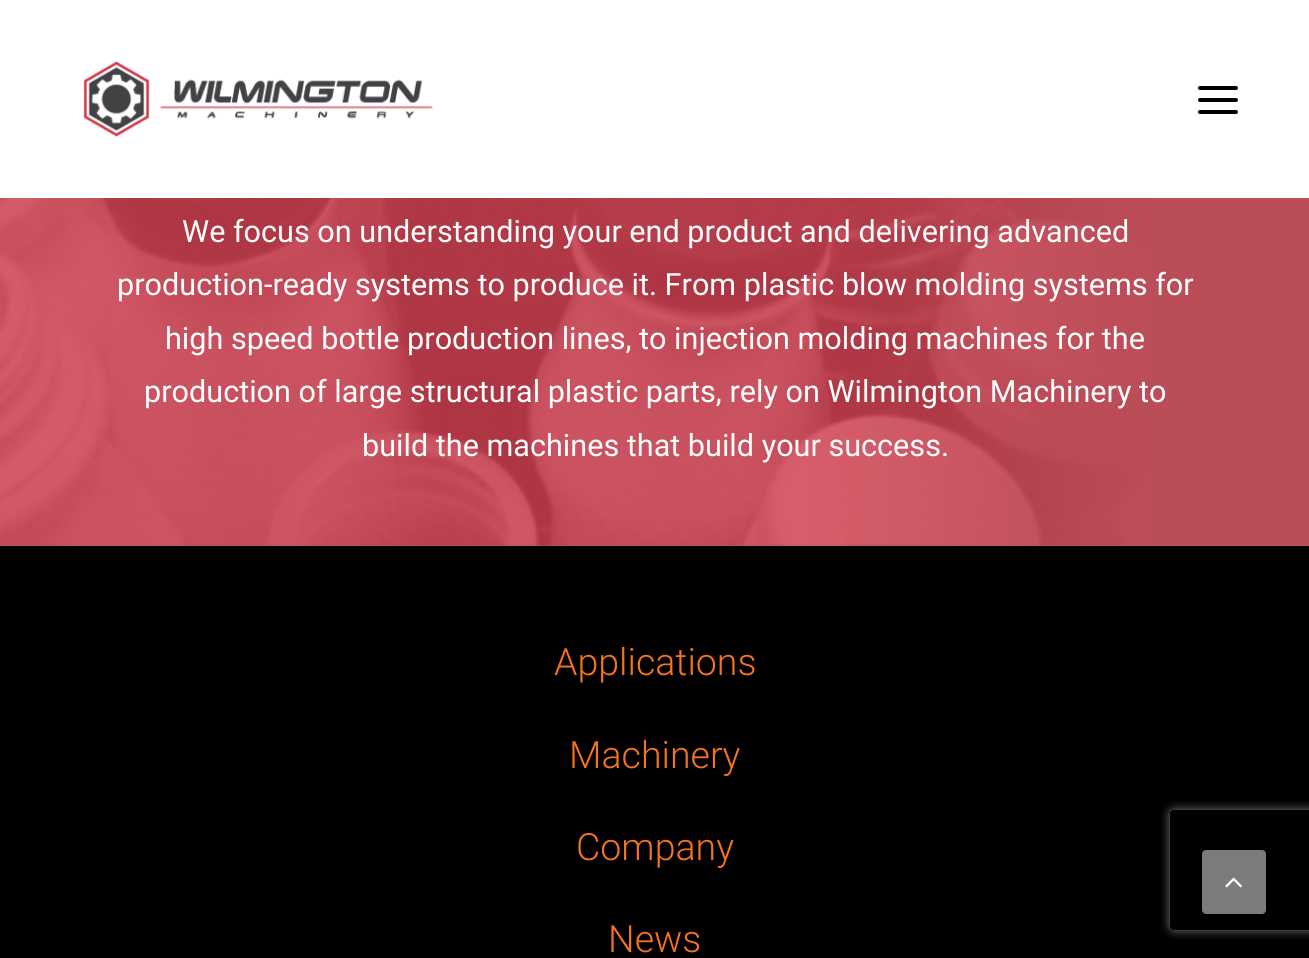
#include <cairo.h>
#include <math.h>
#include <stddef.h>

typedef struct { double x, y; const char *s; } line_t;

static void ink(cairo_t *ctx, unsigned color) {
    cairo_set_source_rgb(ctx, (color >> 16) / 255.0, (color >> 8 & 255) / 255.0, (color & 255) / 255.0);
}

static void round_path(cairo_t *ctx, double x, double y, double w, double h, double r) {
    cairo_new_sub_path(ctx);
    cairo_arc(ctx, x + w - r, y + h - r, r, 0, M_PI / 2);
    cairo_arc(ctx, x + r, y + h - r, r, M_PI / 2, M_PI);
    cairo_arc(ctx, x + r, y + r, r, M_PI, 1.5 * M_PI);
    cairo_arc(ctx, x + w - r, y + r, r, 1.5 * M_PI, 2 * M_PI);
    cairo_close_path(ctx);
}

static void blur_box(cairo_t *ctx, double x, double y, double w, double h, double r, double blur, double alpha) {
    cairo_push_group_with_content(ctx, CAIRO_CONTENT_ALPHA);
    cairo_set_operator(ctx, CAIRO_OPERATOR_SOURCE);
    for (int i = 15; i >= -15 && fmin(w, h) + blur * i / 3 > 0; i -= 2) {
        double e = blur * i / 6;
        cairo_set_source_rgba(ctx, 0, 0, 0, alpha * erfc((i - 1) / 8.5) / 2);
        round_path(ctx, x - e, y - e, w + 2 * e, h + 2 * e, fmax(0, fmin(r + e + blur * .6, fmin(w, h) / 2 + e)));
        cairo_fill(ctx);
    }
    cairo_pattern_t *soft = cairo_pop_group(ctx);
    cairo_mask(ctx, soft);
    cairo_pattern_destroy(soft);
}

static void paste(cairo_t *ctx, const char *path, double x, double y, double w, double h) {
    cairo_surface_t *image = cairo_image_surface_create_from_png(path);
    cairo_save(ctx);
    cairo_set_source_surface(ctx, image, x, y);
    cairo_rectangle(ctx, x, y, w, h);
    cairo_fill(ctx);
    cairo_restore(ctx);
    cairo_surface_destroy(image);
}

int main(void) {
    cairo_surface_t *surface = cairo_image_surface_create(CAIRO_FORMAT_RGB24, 1309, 958);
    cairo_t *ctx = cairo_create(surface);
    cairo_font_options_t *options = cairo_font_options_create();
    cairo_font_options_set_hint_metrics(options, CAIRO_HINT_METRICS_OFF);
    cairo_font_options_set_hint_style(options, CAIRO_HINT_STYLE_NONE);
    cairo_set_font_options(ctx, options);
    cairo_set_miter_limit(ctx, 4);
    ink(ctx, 0x000000);
    cairo_paint(ctx);
    ink(ctx, 0xFFFFFF);
    cairo_rectangle(ctx, 0, 0, 1309, 198);
    cairo_fill(ctx);
    paste(ctx, "media/1.png", 83, 61, 350, 76);
    ink(ctx, 0x000000);
    round_path(ctx, 1198, 98, 40, 4, 2);
    cairo_fill(ctx);
    round_path(ctx, 1198, 86, 40, 4, 2);
    cairo_fill(ctx);
    round_path(ctx, 1198, 110, 40, 4, 2);
    cairo_fill(ctx);
    ink(ctx, 0xBB4D58);
    cairo_rectangle(ctx, 0, 198, 1309, 348);
    cairo_fill(ctx);
    paste(ctx, "media/2.png", 0, 198, 1149, 348);
    cairo_select_font_face(ctx, "Roboto", CAIRO_FONT_SLANT_NORMAL, CAIRO_FONT_WEIGHT_NORMAL);
    cairo_set_font_size(ctx, 30.6);
    ink(ctx, 0xFFFFFF);
    {
        static const line_t items[] = {
            {182, 242, "We focus on understanding your end product and delivering advanced"},
            {117, 295, "production-ready systems to produce it. From plastic blow molding systems for"},
            {165, 349, "high speed bottle production lines, to injection molding machines for the"},
            {144, 402, "production of large structural plastic parts, rely on Wilmington Machinery to"},
            {362, 456, "build the machines that build your success."},
        };
        for (size_t i = 0; i < sizeof items / sizeof *items; i++) {
            cairo_move_to(ctx, items[i].x, items[i].y);
            cairo_show_text(ctx, items[i].s);
        }
    }
    cairo_select_font_face(ctx, "Roboto Light", CAIRO_FONT_SLANT_NORMAL, CAIRO_FONT_WEIGHT_NORMAL);
    cairo_set_font_size(ctx, 37.5);
    ink(ctx, 0xF37321);
    {
        static const line_t items[] = {
            {554, 675, "Applications"},
            {569, 768, "Machinery"},
            {576, 860, "Company"},
            {608, 952, "News"},
        };
        for (size_t i = 0; i < sizeof items / sizeof *items; i++) {
            cairo_move_to(ctx, items[i].x, items[i].y);
            cairo_show_text(ctx, items[i].s);
        }
    }
    cairo_save(ctx);
    cairo_set_fill_rule(ctx, CAIRO_FILL_RULE_EVEN_ODD);
    cairo_new_path(ctx);
    cairo_move_to(ctx, 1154, 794);
    cairo_line_to(ctx, 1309, 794);
    cairo_line_to(ctx, 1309, 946);
    cairo_line_to(ctx, 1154, 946);
    cairo_close_path(ctx);
    cairo_move_to(ctx, 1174, 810);
    cairo_line_to(ctx, 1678, 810);
    cairo_curve_to(ctx, 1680, 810, 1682, 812, 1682, 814);
    cairo_line_to(ctx, 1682, 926);
    cairo_curve_to(ctx, 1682, 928, 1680, 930, 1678, 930);
    cairo_line_to(ctx, 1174, 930);
    cairo_curve_to(ctx, 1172, 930, 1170, 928, 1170, 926);
    cairo_line_to(ctx, 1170, 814);
    cairo_curve_to(ctx, 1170, 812, 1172, 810, 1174, 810);
    cairo_close_path(ctx);
    cairo_clip(ctx);
    ink(ctx, 0x808080);
    blur_box(ctx, 1170, 810, 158, 120, 4, 5, 1);
    cairo_restore(ctx);
    ink(ctx, 0x7C7C7C);
    round_path(ctx, 1203, 851, 62, 62, 3);
    cairo_fill_preserve(ctx);
    cairo_stroke(ctx);
    paste(ctx, "media/3.png", 1225, 877, 17, 11);
    cairo_surface_write_to_png(surface, "image.png");
    cairo_font_options_destroy(options);
    cairo_destroy(ctx);
    cairo_surface_destroy(surface);
    return 0;
}
